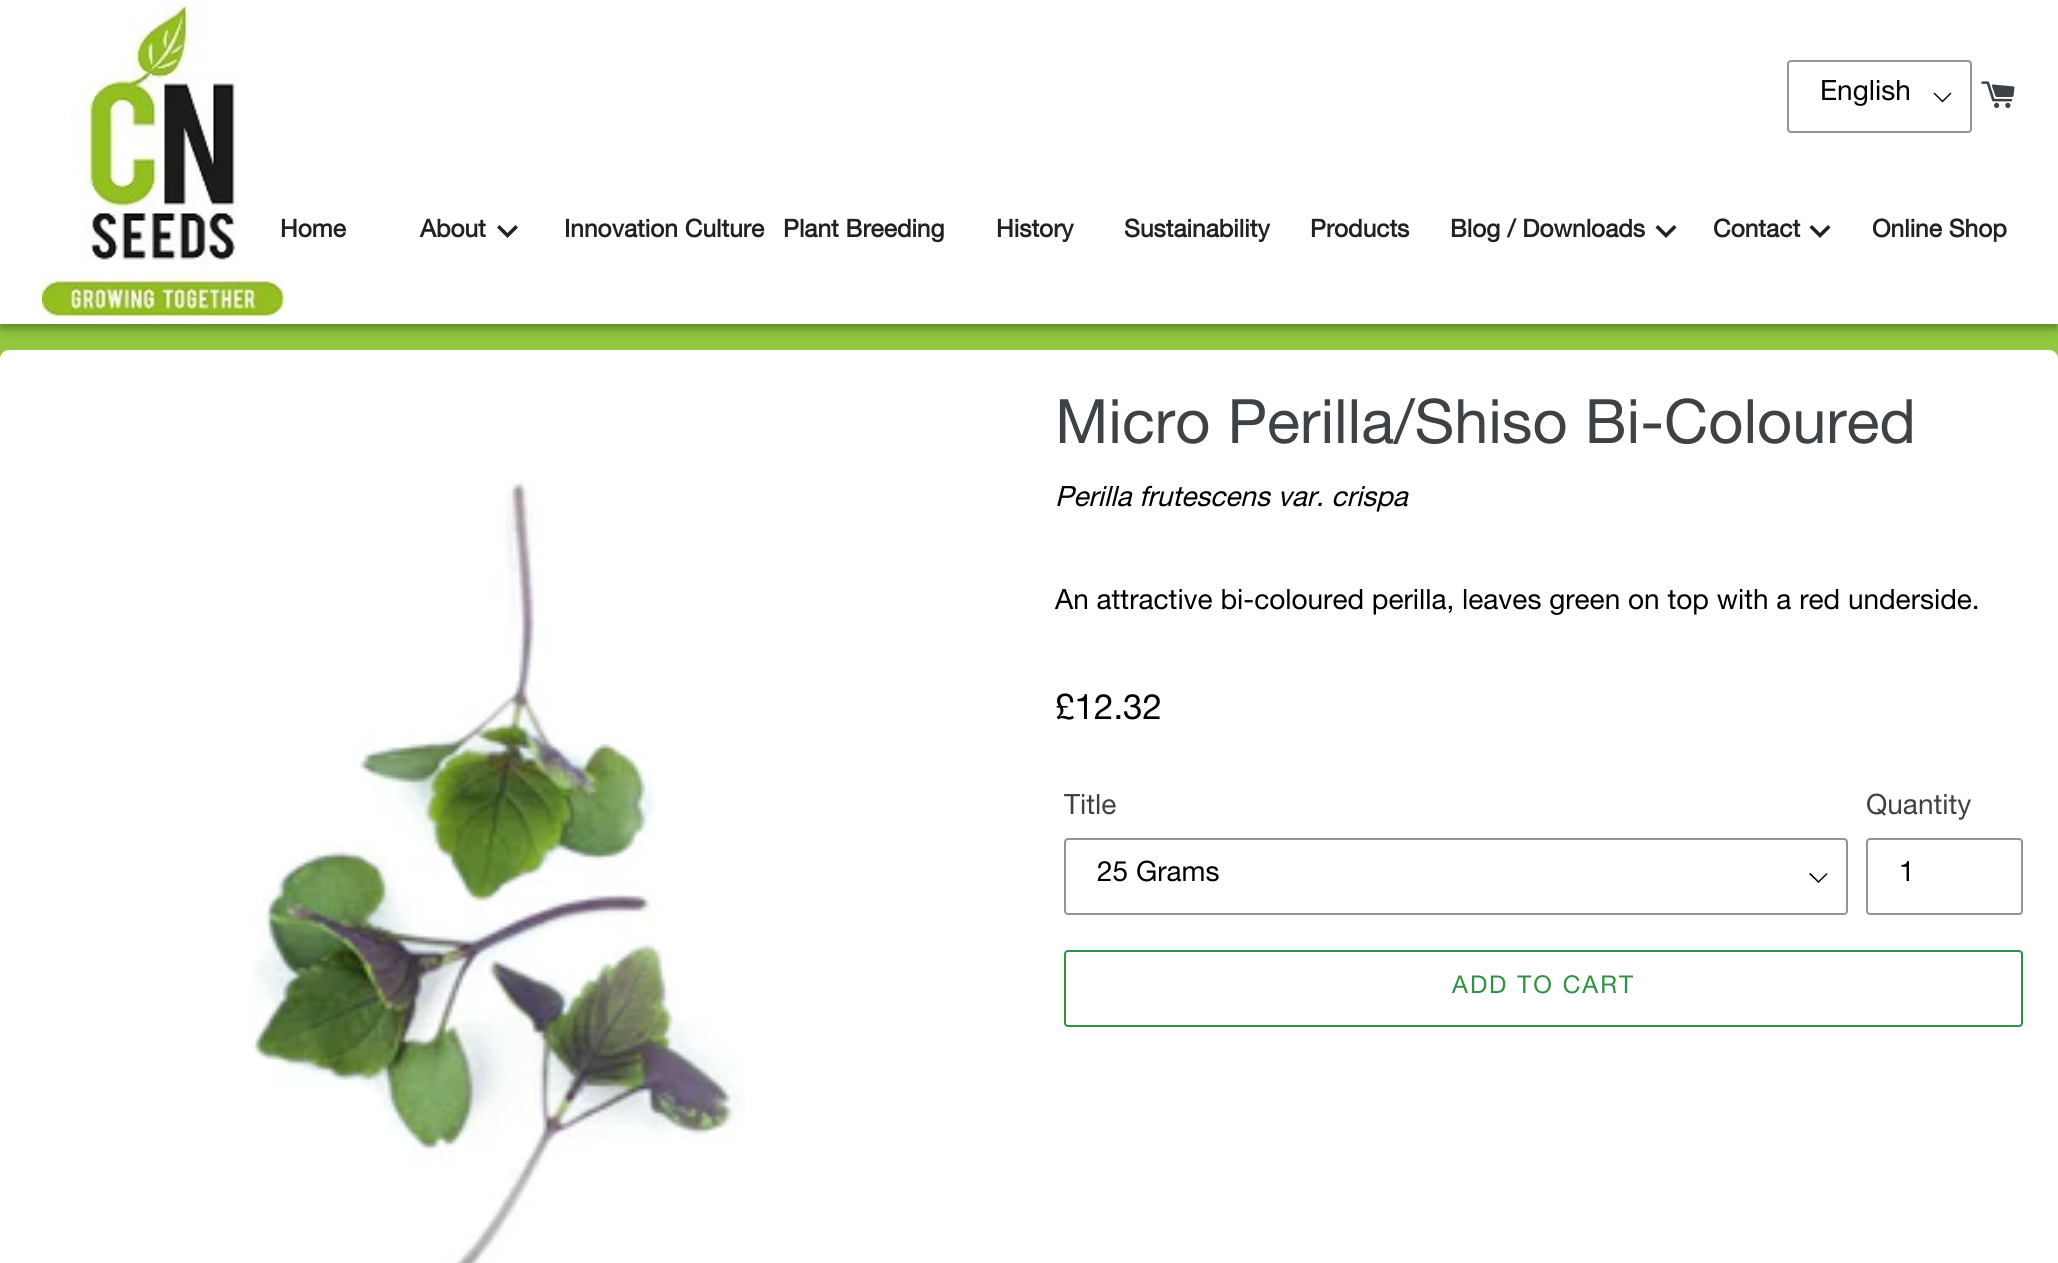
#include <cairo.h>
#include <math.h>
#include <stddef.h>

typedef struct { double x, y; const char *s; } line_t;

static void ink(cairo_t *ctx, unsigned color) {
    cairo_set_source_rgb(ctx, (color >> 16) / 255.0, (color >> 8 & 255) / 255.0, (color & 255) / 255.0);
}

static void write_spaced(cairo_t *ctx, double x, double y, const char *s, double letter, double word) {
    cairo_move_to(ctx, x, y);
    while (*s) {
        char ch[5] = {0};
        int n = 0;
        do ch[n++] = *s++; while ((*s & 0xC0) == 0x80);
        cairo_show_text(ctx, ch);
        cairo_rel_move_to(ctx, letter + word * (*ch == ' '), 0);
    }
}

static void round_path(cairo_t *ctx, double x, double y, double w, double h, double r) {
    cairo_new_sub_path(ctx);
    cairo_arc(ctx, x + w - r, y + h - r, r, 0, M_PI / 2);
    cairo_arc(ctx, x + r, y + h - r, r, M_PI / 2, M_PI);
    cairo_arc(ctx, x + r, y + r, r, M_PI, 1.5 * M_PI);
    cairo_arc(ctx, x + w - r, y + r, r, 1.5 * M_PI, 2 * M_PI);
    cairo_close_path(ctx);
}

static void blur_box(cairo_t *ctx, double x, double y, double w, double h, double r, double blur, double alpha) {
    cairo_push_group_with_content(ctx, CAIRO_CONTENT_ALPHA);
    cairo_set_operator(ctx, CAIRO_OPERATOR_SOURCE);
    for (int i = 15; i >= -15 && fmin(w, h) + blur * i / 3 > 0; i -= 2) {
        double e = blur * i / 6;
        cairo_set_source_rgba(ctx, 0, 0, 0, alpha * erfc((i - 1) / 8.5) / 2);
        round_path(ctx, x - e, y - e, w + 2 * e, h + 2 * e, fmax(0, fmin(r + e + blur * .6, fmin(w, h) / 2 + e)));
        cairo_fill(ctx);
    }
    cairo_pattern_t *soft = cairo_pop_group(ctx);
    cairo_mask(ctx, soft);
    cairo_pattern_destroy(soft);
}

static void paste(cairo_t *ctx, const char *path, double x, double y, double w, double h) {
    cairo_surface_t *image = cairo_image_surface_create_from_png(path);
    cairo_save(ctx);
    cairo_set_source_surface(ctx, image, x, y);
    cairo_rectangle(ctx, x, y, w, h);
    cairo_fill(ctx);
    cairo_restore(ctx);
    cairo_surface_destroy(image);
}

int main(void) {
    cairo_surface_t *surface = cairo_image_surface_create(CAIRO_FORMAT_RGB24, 2058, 1263);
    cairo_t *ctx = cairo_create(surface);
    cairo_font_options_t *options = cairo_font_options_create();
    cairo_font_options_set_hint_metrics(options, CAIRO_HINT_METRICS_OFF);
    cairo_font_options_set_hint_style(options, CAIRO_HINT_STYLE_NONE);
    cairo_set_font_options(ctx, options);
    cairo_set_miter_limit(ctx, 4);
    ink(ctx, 0x92C83E);
    cairo_paint(ctx);
    ink(ctx, 0xFFFFFF);
    round_path(ctx, 0, 350, 2058, 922, 9);
    cairo_fill(ctx);
    ink(ctx, 0x000000);
    blur_box(ctx, 0, 2, 2058, 324, 0, 9, 0.12);
    blur_box(ctx, 0, 7, 2058, 324, 0, 4.5, 0.14);
    blur_box(ctx, 2, 5, 2054, 321, 0, 3.5, 0.2);
    ink(ctx, 0xFFFFFF);
    cairo_rectangle(ctx, 0, 0, 2058, 324);
    cairo_fill(ctx);
    paste(ctx, "media/1.png", 42, 0, 242, 323);
    ink(ctx, 0x000000);
    cairo_new_path(ctx);
    cairo_move_to(ctx, 1942.5, 102.5);
    cairo_line_to(ctx, 1933.5, 93.5);
    cairo_line_to(ctx, 1934.5, 92.5);
    cairo_line_to(ctx, 1942.5, 100.5);
    cairo_line_to(ctx, 1950.5, 92.5);
    cairo_line_to(ctx, 1951.5, 93.5);
    cairo_close_path(ctx);
    cairo_fill(ctx);
    round_path(ctx, 1788, 61, 183, 71, 3);
    ink(ctx, 0x949494);
    cairo_stroke(ctx);
    cairo_select_font_face(ctx, "Helvetica Neue", CAIRO_FONT_SLANT_NORMAL, CAIRO_FONT_WEIGHT_NORMAL);
    cairo_set_font_size(ctx, 28);
    ink(ctx, 0x000000);
    cairo_move_to(ctx, 1820, 100);
    cairo_show_text(ctx, "English");
    paste(ctx, "media/2.png", 1981, 81, 34, 27);
    cairo_select_font_face(ctx, "Helvetica Neue", CAIRO_FONT_SLANT_NORMAL, CAIRO_FONT_WEIGHT_BOLD);
    cairo_set_font_size(ctx, 24.5);
    ink(ctx, 0x212121);
    cairo_move_to(ctx, 280, 237);
    cairo_show_text(ctx, "Home");
    cairo_move_to(ctx, 420, 237);
    cairo_show_text(ctx, "About");
    cairo_new_path(ctx);
    cairo_move_to(ctx, 499.5, 225);
    cairo_line_to(ctx, 507.5, 233);
    cairo_line_to(ctx, 515.5, 225);
    cairo_line_to(ctx, 518, 227.5);
    cairo_line_to(ctx, 507.5, 238);
    cairo_line_to(ctx, 497, 227.5);
    cairo_close_path(ctx);
    cairo_fill(ctx);
    {
        static const line_t items[] = {
            {564, 237, "Innovation Culture"},
            {783, 237, "Plant Breeding"},
            {996, 237, "History"},
            {1124, 237, "Sustainability"},
            {1310, 237, "Products"},
            {1450, 237, "Blog / Downloads"},
        };
        for (size_t i = 0; i < sizeof items / sizeof *items; i++) {
            cairo_move_to(ctx, items[i].x, items[i].y);
            cairo_show_text(ctx, items[i].s);
        }
    }
    cairo_new_path(ctx);
    cairo_move_to(ctx, 1658, 225);
    cairo_line_to(ctx, 1666, 233);
    cairo_line_to(ctx, 1674, 225);
    cairo_line_to(ctx, 1676.5, 227.5);
    cairo_line_to(ctx, 1666, 238);
    cairo_line_to(ctx, 1655.5, 227.5);
    cairo_close_path(ctx);
    cairo_fill(ctx);
    cairo_move_to(ctx, 1713, 237);
    cairo_show_text(ctx, "Contact");
    cairo_new_path(ctx);
    cairo_move_to(ctx, 1812, 225);
    cairo_line_to(ctx, 1820, 233);
    cairo_line_to(ctx, 1828, 225);
    cairo_line_to(ctx, 1830.5, 227.5);
    cairo_line_to(ctx, 1820, 238);
    cairo_line_to(ctx, 1809.5, 227.5);
    cairo_close_path(ctx);
    cairo_fill(ctx);
    cairo_move_to(ctx, 1872, 237);
    cairo_show_text(ctx, "Online Shop");
    paste(ctx, "media/3.png", 251, 479, 495, 784);
    cairo_select_font_face(ctx, "Helvetica Neue", CAIRO_FONT_SLANT_NORMAL, CAIRO_FONT_WEIGHT_NORMAL);
    cairo_set_font_size(ctx, 61.25);
    ink(ctx, 0x3D4246);
    cairo_move_to(ctx, 1055, 443);
    cairo_show_text(ctx, "Micro Perilla/Shiso Bi-Coloured");
    cairo_select_font_face(ctx, "Helvetica Neue", CAIRO_FONT_SLANT_ITALIC, CAIRO_FONT_WEIGHT_NORMAL);
    cairo_set_font_size(ctx, 28);
    ink(ctx, 0x000000);
    cairo_move_to(ctx, 1055, 506);
    cairo_show_text(ctx, "Perilla frutescens var. crispa");
    cairo_select_font_face(ctx, "Helvetica Neue", CAIRO_FONT_SLANT_NORMAL, CAIRO_FONT_WEIGHT_NORMAL);
    cairo_move_to(ctx, 1055, 609);
    cairo_show_text(ctx, "An attractive bi-coloured perilla, leaves green on top with a red underside.");
    cairo_set_font_size(ctx, 35);
    cairo_move_to(ctx, 1055, 719);
    cairo_show_text(ctx, "£12.32");
    cairo_set_font_size(ctx, 28);
    ink(ctx, 0x3D4246);
    cairo_move_to(ctx, 1064, 814);
    cairo_show_text(ctx, "Title");
    ink(ctx, 0x000000);
    cairo_new_path(ctx);
    cairo_move_to(ctx, 1818.5, 883);
    cairo_line_to(ctx, 1809, 874);
    cairo_line_to(ctx, 1810.5, 873);
    cairo_line_to(ctx, 1818.5, 881);
    cairo_line_to(ctx, 1826.5, 873);
    cairo_line_to(ctx, 1827.5, 874);
    cairo_close_path(ctx);
    cairo_fill(ctx);
    round_path(ctx, 1065, 839, 782, 75, 3);
    ink(ctx, 0x949494);
    cairo_stroke(ctx);
    ink(ctx, 0x000000);
    cairo_move_to(ctx, 1097, 881);
    cairo_show_text(ctx, "25 Grams");
    ink(ctx, 0x3D4246);
    cairo_move_to(ctx, 1866, 814);
    cairo_show_text(ctx, "Quantity");
    round_path(ctx, 1867, 839, 155, 75, 3);
    ink(ctx, 0x949494);
    cairo_stroke(ctx);
    ink(ctx, 0x000000);
    cairo_move_to(ctx, 1899, 881);
    cairo_show_text(ctx, "1");
    round_path(ctx, 1065, 951, 957, 75, 3);
    ink(ctx, 0x329044);
    cairo_stroke(ctx);
    cairo_set_font_size(ctx, 24.5);
    write_spaced(ctx, 1452, 993, "ADD TO CART", 2, 0);
    cairo_surface_write_to_png(surface, "image.png");
    cairo_font_options_destroy(options);
    cairo_destroy(ctx);
    cairo_surface_destroy(surface);
    return 0;
}
